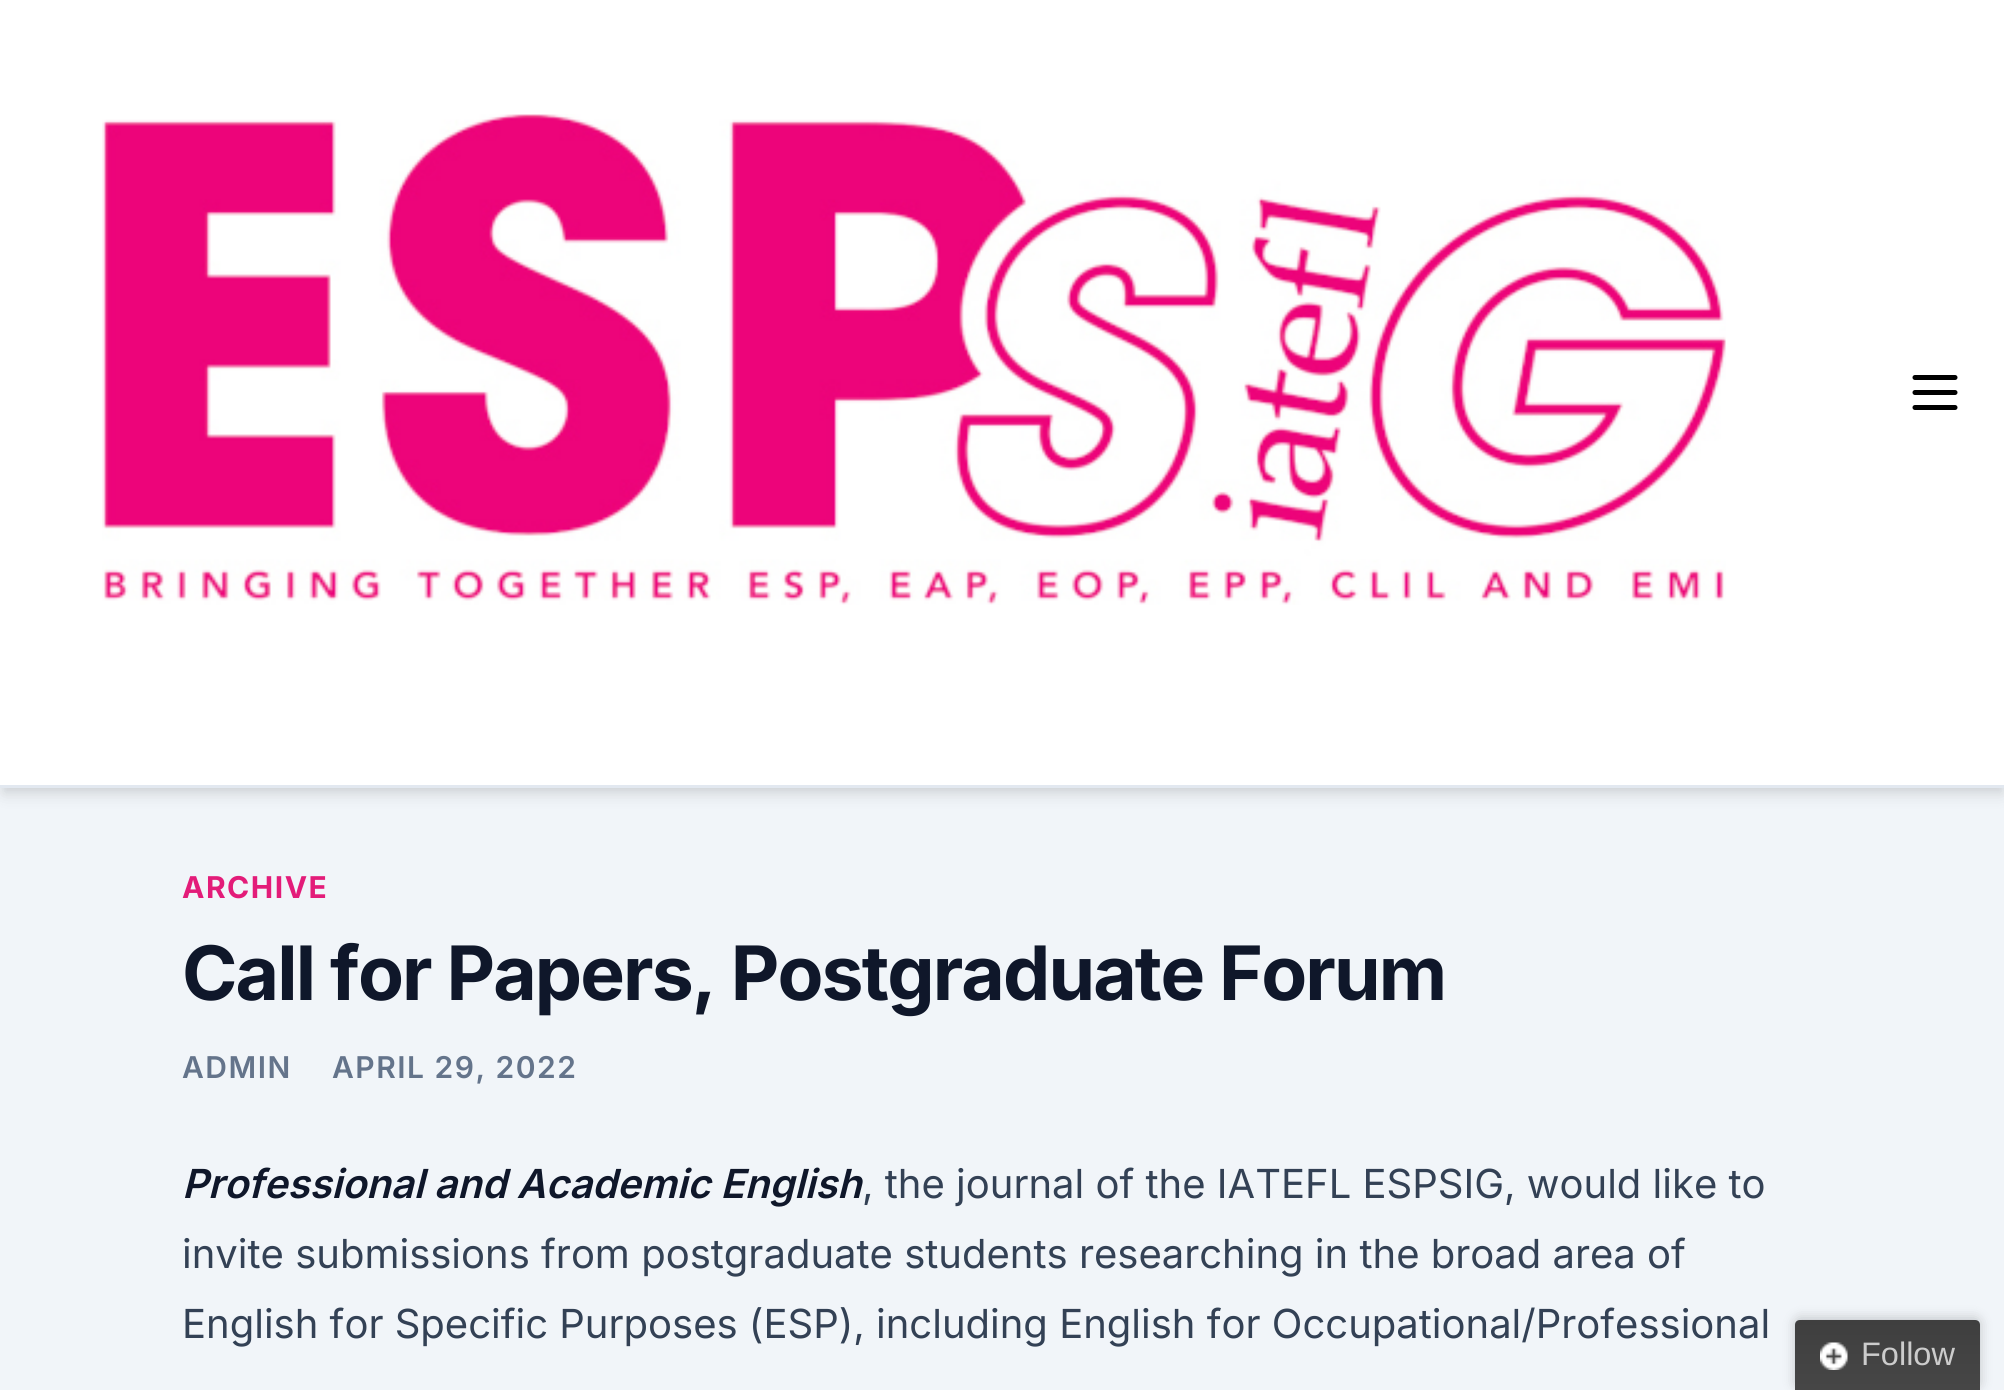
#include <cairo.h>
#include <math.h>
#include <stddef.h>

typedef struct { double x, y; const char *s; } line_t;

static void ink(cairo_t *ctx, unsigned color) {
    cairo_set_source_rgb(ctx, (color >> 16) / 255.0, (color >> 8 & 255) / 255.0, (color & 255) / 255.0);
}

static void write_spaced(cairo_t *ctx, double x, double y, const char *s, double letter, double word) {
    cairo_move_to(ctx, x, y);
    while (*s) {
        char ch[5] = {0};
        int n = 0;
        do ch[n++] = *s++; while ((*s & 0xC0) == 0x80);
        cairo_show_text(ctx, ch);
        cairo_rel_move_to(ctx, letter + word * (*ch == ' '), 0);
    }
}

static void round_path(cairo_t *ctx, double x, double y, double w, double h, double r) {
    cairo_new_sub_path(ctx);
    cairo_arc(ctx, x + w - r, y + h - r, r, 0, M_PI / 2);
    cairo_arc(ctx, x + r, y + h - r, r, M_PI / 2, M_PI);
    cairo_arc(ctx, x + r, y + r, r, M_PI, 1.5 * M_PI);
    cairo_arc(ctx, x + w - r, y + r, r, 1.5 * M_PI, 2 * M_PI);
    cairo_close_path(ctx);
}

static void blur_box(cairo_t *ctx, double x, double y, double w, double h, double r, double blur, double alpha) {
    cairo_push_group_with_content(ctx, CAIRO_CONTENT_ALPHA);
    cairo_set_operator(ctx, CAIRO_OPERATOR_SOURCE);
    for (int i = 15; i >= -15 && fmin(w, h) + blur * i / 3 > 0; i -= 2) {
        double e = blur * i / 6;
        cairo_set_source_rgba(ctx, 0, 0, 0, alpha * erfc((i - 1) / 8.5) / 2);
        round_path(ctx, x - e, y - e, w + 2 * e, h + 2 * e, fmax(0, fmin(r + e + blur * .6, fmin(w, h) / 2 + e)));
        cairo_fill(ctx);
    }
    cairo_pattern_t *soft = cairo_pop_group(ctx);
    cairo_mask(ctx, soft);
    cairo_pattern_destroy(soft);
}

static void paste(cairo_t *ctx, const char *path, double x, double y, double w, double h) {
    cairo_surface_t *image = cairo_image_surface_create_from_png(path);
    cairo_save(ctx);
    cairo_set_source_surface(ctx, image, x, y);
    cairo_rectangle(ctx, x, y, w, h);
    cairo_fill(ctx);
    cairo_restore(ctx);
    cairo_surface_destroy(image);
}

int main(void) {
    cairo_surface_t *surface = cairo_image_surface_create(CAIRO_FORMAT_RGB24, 2004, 1390);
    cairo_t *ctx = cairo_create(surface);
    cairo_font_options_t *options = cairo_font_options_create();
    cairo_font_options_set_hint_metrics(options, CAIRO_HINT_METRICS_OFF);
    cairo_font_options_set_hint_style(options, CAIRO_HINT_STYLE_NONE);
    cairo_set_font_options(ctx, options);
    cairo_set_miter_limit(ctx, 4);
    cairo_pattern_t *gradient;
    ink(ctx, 0xF1F5F9);
    cairo_paint(ctx);
    ink(ctx, 0x000000);
    blur_box(ctx, 3, 8, 2000, 782, 0, 5, 0.06);
    blur_box(ctx, 3, 13, 2000, 782, 0, 7.5, 0.1);
    ink(ctx, 0xFFFFFF);
    cairo_rectangle(ctx, 0, 0, 2004, 785);
    cairo_fill(ctx);
    paste(ctx, "media/1.png", 102, 114, 1624, 491);
    cairo_new_path(ctx);
    cairo_move_to(ctx, 1915, 377.5);
    cairo_line_to(ctx, 1955, 377.5);
    cairo_move_to(ctx, 1915, 392.5);
    cairo_line_to(ctx, 1955, 392.5);
    cairo_move_to(ctx, 1915, 407.5);
    cairo_line_to(ctx, 1955, 407.5);
    ink(ctx, 0x000000);
    cairo_set_line_width(ctx, 5);
    cairo_set_line_cap(ctx, CAIRO_LINE_CAP_ROUND);
    cairo_set_line_join(ctx, CAIRO_LINE_JOIN_ROUND);
    cairo_stroke(ctx);
    ink(ctx, 0xE2E8F0);
    cairo_rectangle(ctx, 0, 785, 2004, 3);
    cairo_fill(ctx);
    cairo_select_font_face(ctx, "Inter", CAIRO_FONT_SLANT_NORMAL, CAIRO_FONT_WEIGHT_BOLD);
    cairo_set_font_size(ctx, 30);
    ink(ctx, 0xE31C79);
    write_spaced(ctx, 182, 898, "ARCHIVE", 1.5, 0);
    cairo_set_font_size(ctx, 75);
    ink(ctx, 0x0F172A);
    write_spaced(ctx, 182, 1000, "Call for Papers, Postgraduate Forum", -1.9, 0);
    cairo_select_font_face(ctx, "Inter SemiBold", CAIRO_FONT_SLANT_NORMAL, CAIRO_FONT_WEIGHT_NORMAL);
    cairo_set_font_size(ctx, 30);
    ink(ctx, 0x64748B);
    write_spaced(ctx, 182, 1078, "ADMIN", 1.5, 0);
    write_spaced(ctx, 332, 1078, "APRIL 29, 2022", 1.5, 0);
    cairo_select_font_face(ctx, "Inter SemiBold", CAIRO_FONT_SLANT_ITALIC, CAIRO_FONT_WEIGHT_NORMAL);
    cairo_set_font_size(ctx, 40);
    ink(ctx, 0x0F172A);
    cairo_move_to(ctx, 182, 1198);
    cairo_show_text(ctx, "Professional and Academic English");
    cairo_select_font_face(ctx, "Inter", CAIRO_FONT_SLANT_NORMAL, CAIRO_FONT_WEIGHT_NORMAL);
    ink(ctx, 0x334155);
    {
        static const line_t items[] = {
            {862, 1198, ", the journal of the IATEFL ESPSIG, would like to"},
            {182, 1268, "invite submissions from postgraduate students researching in the broad area of"},
            {182, 1338, "English for Specific Purposes (ESP), including English for Occupational/Professional"},
        };
        for (size_t i = 0; i < sizeof items / sizeof *items; i++) {
            cairo_move_to(ctx, items[i].x, items[i].y);
            cairo_show_text(ctx, items[i].s);
        }
    }
    ink(ctx, 0x000000);
    blur_box(ctx, 1795, 1318, 185, 70, 5, 6, 0.2);
    gradient = cairo_pattern_create_linear(1795, 1320, 1795, 1390);
    cairo_pattern_add_color_stop_rgba(gradient, 0, 0.247, 0.247, 0.247, 1);
    cairo_pattern_add_color_stop_rgba(gradient, 1, 0.275, 0.275, 0.275, 1);
    cairo_set_source(ctx, gradient);
    cairo_pattern_destroy(gradient);
    cairo_new_path(ctx);
    cairo_move_to(ctx, 1800, 1320);
    cairo_line_to(ctx, 1975, 1320);
    cairo_curve_to(ctx, 1978, 1320, 1980, 1322, 1980, 1325);
    cairo_line_to(ctx, 1980, 1390);
    cairo_line_to(ctx, 1795, 1390);
    cairo_line_to(ctx, 1795, 1325);
    cairo_curve_to(ctx, 1795, 1322, 1797, 1320, 1800, 1320);
    cairo_close_path(ctx);
    cairo_fill(ctx);
    paste(ctx, "media/2.png", 1820, 1342, 28, 28);
    cairo_select_font_face(ctx, "Liberation Sans", CAIRO_FONT_SLANT_NORMAL, CAIRO_FONT_WEIGHT_NORMAL);
    cairo_set_font_size(ctx, 32.5);
    ink(ctx, 0xCCCCCC);
    cairo_move_to(ctx, 1861, 1365);
    cairo_show_text(ctx, "Follow");
    cairo_surface_write_to_png(surface, "image.png");
    cairo_font_options_destroy(options);
    cairo_destroy(ctx);
    cairo_surface_destroy(surface);
    return 0;
}
